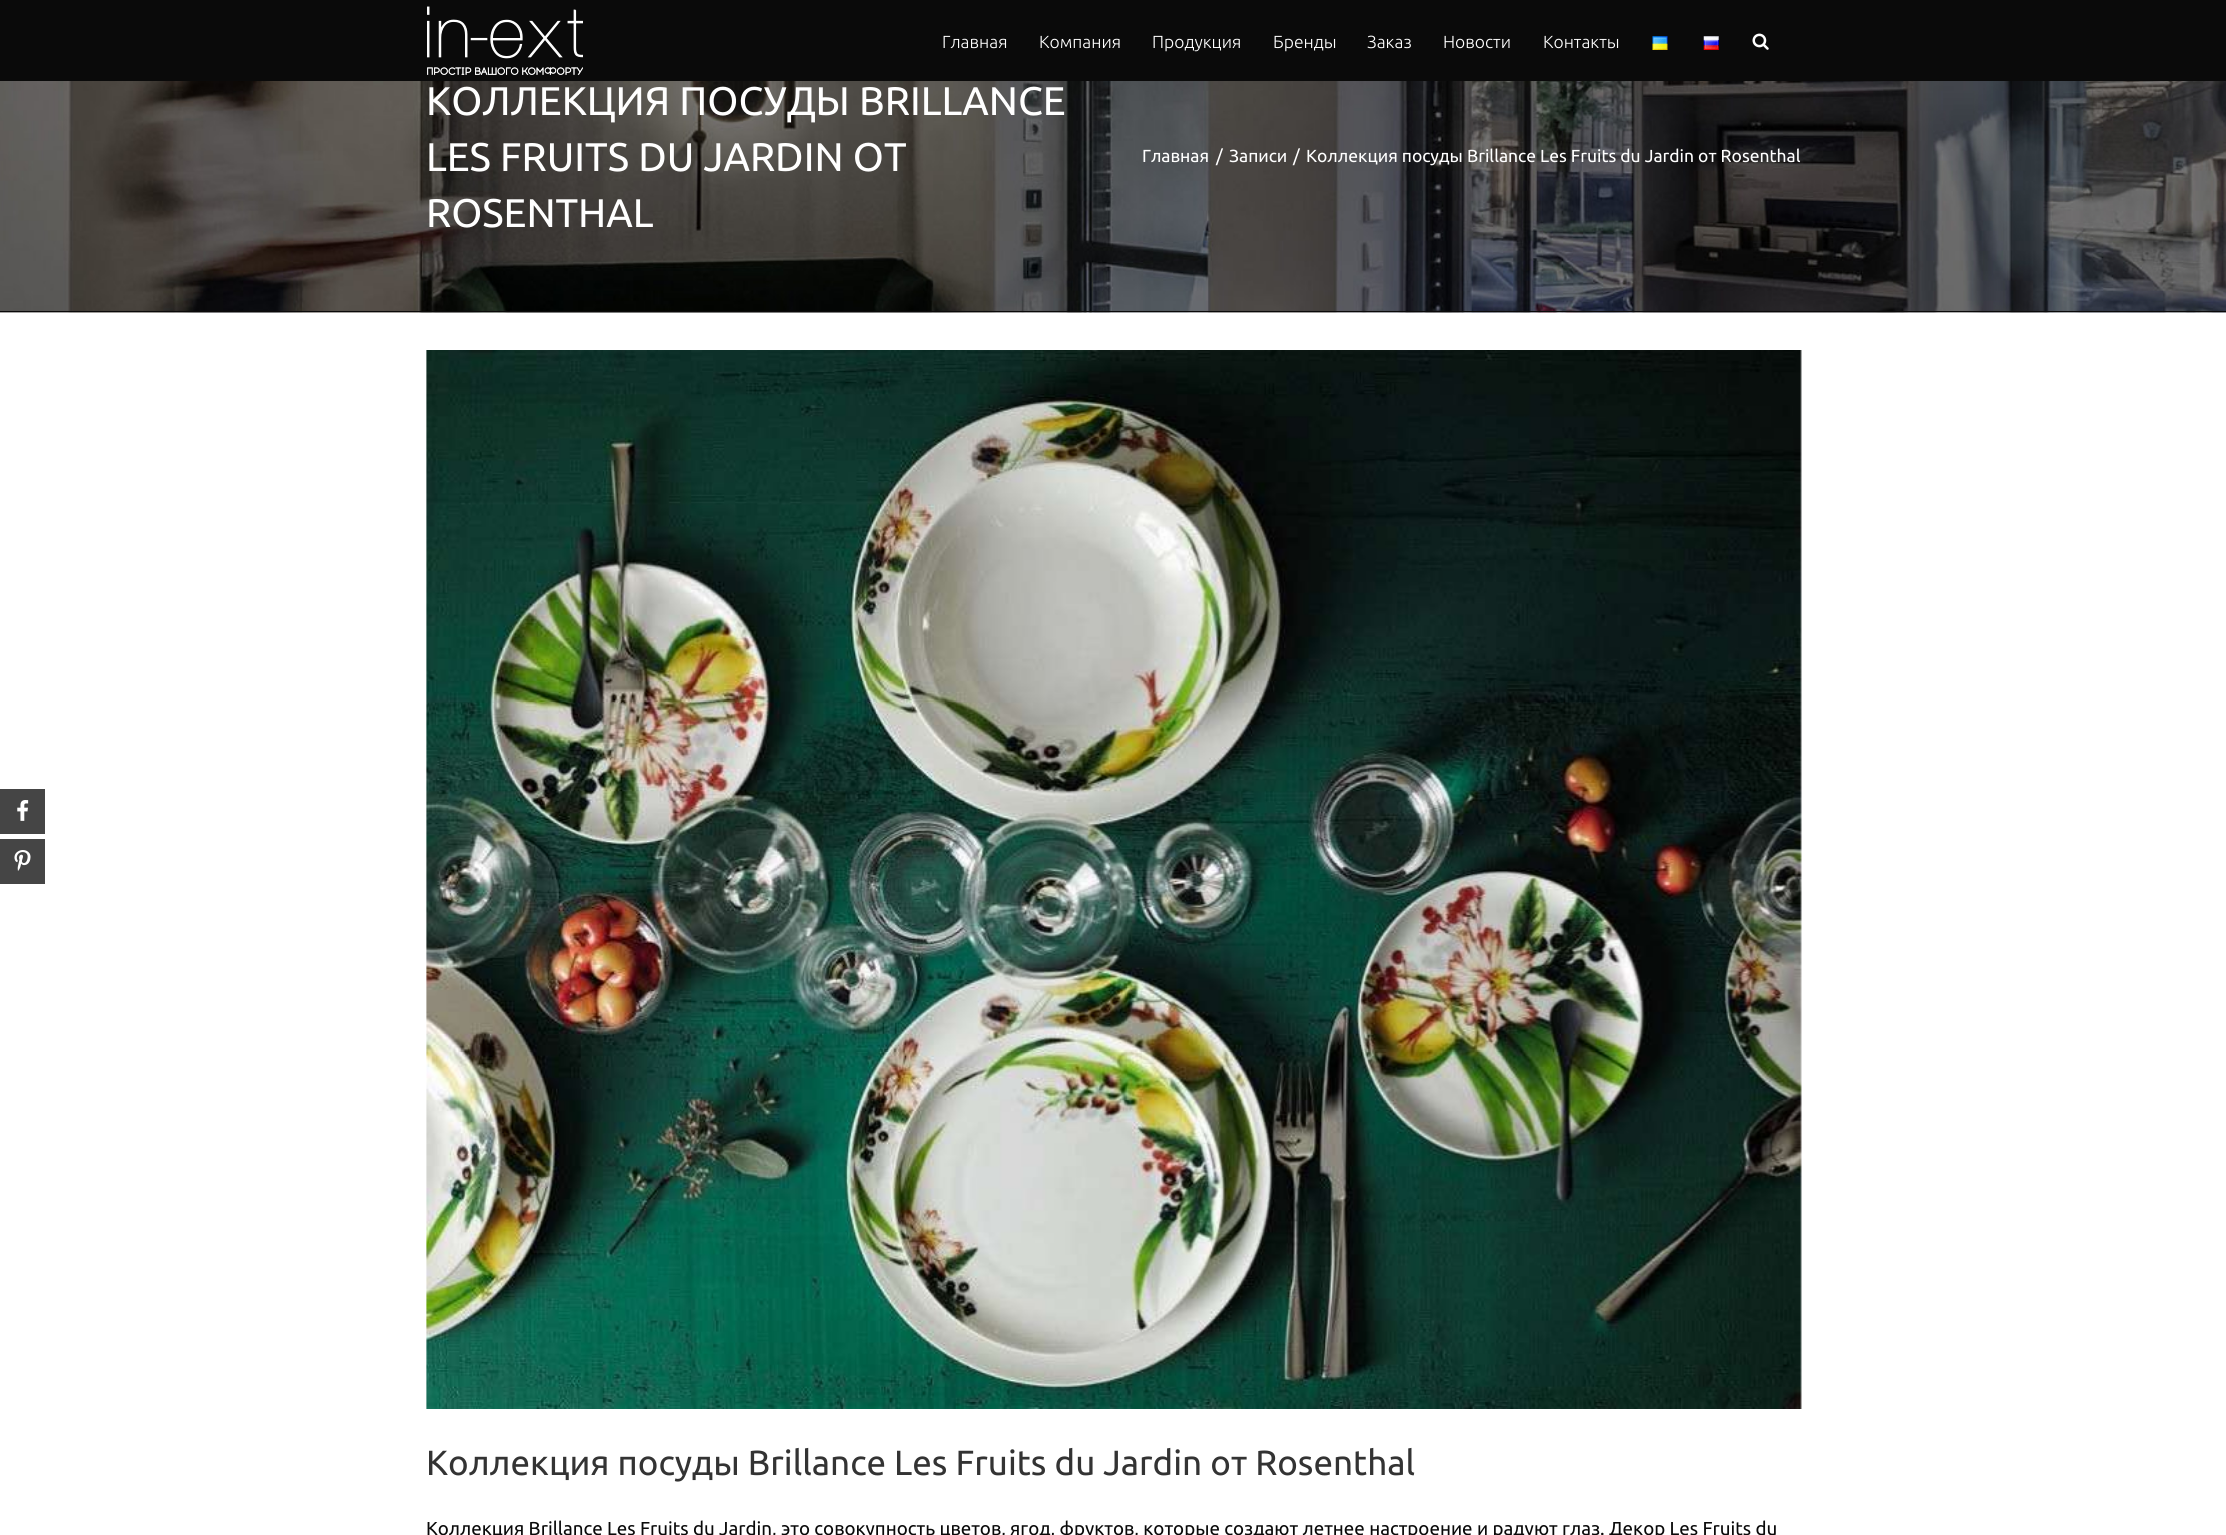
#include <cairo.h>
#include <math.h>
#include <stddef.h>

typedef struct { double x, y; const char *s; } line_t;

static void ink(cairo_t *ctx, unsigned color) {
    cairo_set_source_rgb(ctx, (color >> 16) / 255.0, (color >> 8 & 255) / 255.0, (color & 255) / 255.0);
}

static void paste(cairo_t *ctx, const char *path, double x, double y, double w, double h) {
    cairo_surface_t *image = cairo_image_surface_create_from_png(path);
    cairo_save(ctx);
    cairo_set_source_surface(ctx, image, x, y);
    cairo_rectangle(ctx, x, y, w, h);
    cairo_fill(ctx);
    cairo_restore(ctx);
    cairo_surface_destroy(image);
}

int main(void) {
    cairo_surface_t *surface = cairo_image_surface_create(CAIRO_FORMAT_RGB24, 2226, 1535);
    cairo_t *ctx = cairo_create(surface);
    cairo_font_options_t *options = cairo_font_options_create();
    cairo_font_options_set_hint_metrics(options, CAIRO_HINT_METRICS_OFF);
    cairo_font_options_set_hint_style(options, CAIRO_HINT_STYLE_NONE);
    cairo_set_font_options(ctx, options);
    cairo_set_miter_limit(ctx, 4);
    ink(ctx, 0xFFFFFF);
    cairo_paint(ctx);
    ink(ctx, 0x454545);
    cairo_rectangle(ctx, 0, 789, 45, 45);
    cairo_fill(ctx);
    paste(ctx, "media/1.png", 17, 800, 12, 21);
    cairo_rectangle(ctx, 0, 839, 45, 45);
    cairo_fill(ctx);
    paste(ctx, "media/2.png", 14, 850, 17, 21);
    ink(ctx, 0x0A0A0A);
    cairo_rectangle(ctx, 0, 0, 2226, 81);
    cairo_fill(ctx);
    paste(ctx, "media/3.png", 427, 6, 156, 69);
    cairo_select_font_face(ctx, "Ubuntu Light", CAIRO_FONT_SLANT_NORMAL, CAIRO_FONT_WEIGHT_NORMAL);
    cairo_set_font_size(ctx, 17.5);
    ink(ctx, 0xFFFFFF);
    {
        static const line_t items[] = {
            {942, 48, "Главная"},
            {1039, 48, "Компания"},
            {1152, 48, "Продукция"},
            {1273, 48, "Бренды"},
            {1367, 48, "Заказ"},
            {1443, 48, "Новости"},
            {1543, 48, "Контакты"},
        };
        for (size_t i = 0; i < sizeof items / sizeof *items; i++) {
            cairo_move_to(ctx, items[i].x, items[i].y);
            cairo_show_text(ctx, items[i].s);
        }
    }
    paste(ctx, "media/4.png", 1652, 36, 16, 14);
    paste(ctx, "media/5.png", 1703, 36, 16, 14);
    paste(ctx, "media/6.png", 1752, 33, 17, 17);
    ink(ctx, 0xF6F6F6);
    cairo_rectangle(ctx, 0, 312, 2226, 1);
    cairo_fill(ctx);
    paste(ctx, "media/7.png", 0, 81, 2226, 232);
    ink(ctx, 0x0A0909);
    cairo_rectangle(ctx, 0, 311, 2226, 1);
    cairo_fill(ctx);
    cairo_select_font_face(ctx, "Ubuntu", CAIRO_FONT_SLANT_NORMAL, CAIRO_FONT_WEIGHT_NORMAL);
    cairo_set_font_size(ctx, 40);
    ink(ctx, 0xFFFFFF);
    {
        static const line_t items[] = {
            {426, 115, "КОЛЛЕКЦИЯ ПОСУДЫ BRILLANCE"},
            {426, 171, "LES FRUITS DU JARDIN ОТ"},
            {426, 227, "ROSENTHAL"},
        };
        for (size_t i = 0; i < sizeof items / sizeof *items; i++) {
            cairo_move_to(ctx, items[i].x, items[i].y);
            cairo_show_text(ctx, items[i].s);
        }
    }
    cairo_set_font_size(ctx, 17.5);
    {
        static const line_t items[] = {
            {1142, 162, "Главная"},
            {1216, 162, "/"},
            {1229, 162, "Записи"},
            {1293, 162, "/"},
            {1306, 162, "Коллекция посуды Brillance Les Fruits du Jardin от Rosenthal"},
        };
        for (size_t i = 0; i < sizeof items / sizeof *items; i++) {
            cairo_move_to(ctx, items[i].x, items[i].y);
            cairo_show_text(ctx, items[i].s);
        }
    }
    paste(ctx, "media/8.png", 426, 350, 1376, 1059);
    cairo_set_font_size(ctx, 35);
    ink(ctx, 0x333333);
    cairo_move_to(ctx, 426, 1475);
    cairo_show_text(ctx, "Коллекция посуды Brillance Les Fruits du Jardin от Rosenthal");
    cairo_set_font_size(ctx, 18.75);
    ink(ctx, 0x0A0A0A);
    cairo_move_to(ctx, 426, 1535);
    cairo_show_text(ctx, "Коллекция Brillance Les Fruits du Jardin, это совокупность цветов, ягод, фруктов, которые создают летнее настроение и радуют глаз. Декор Les Fruits du");
    cairo_surface_write_to_png(surface, "image.png");
    cairo_font_options_destroy(options);
    cairo_destroy(ctx);
    cairo_surface_destroy(surface);
    return 0;
}
